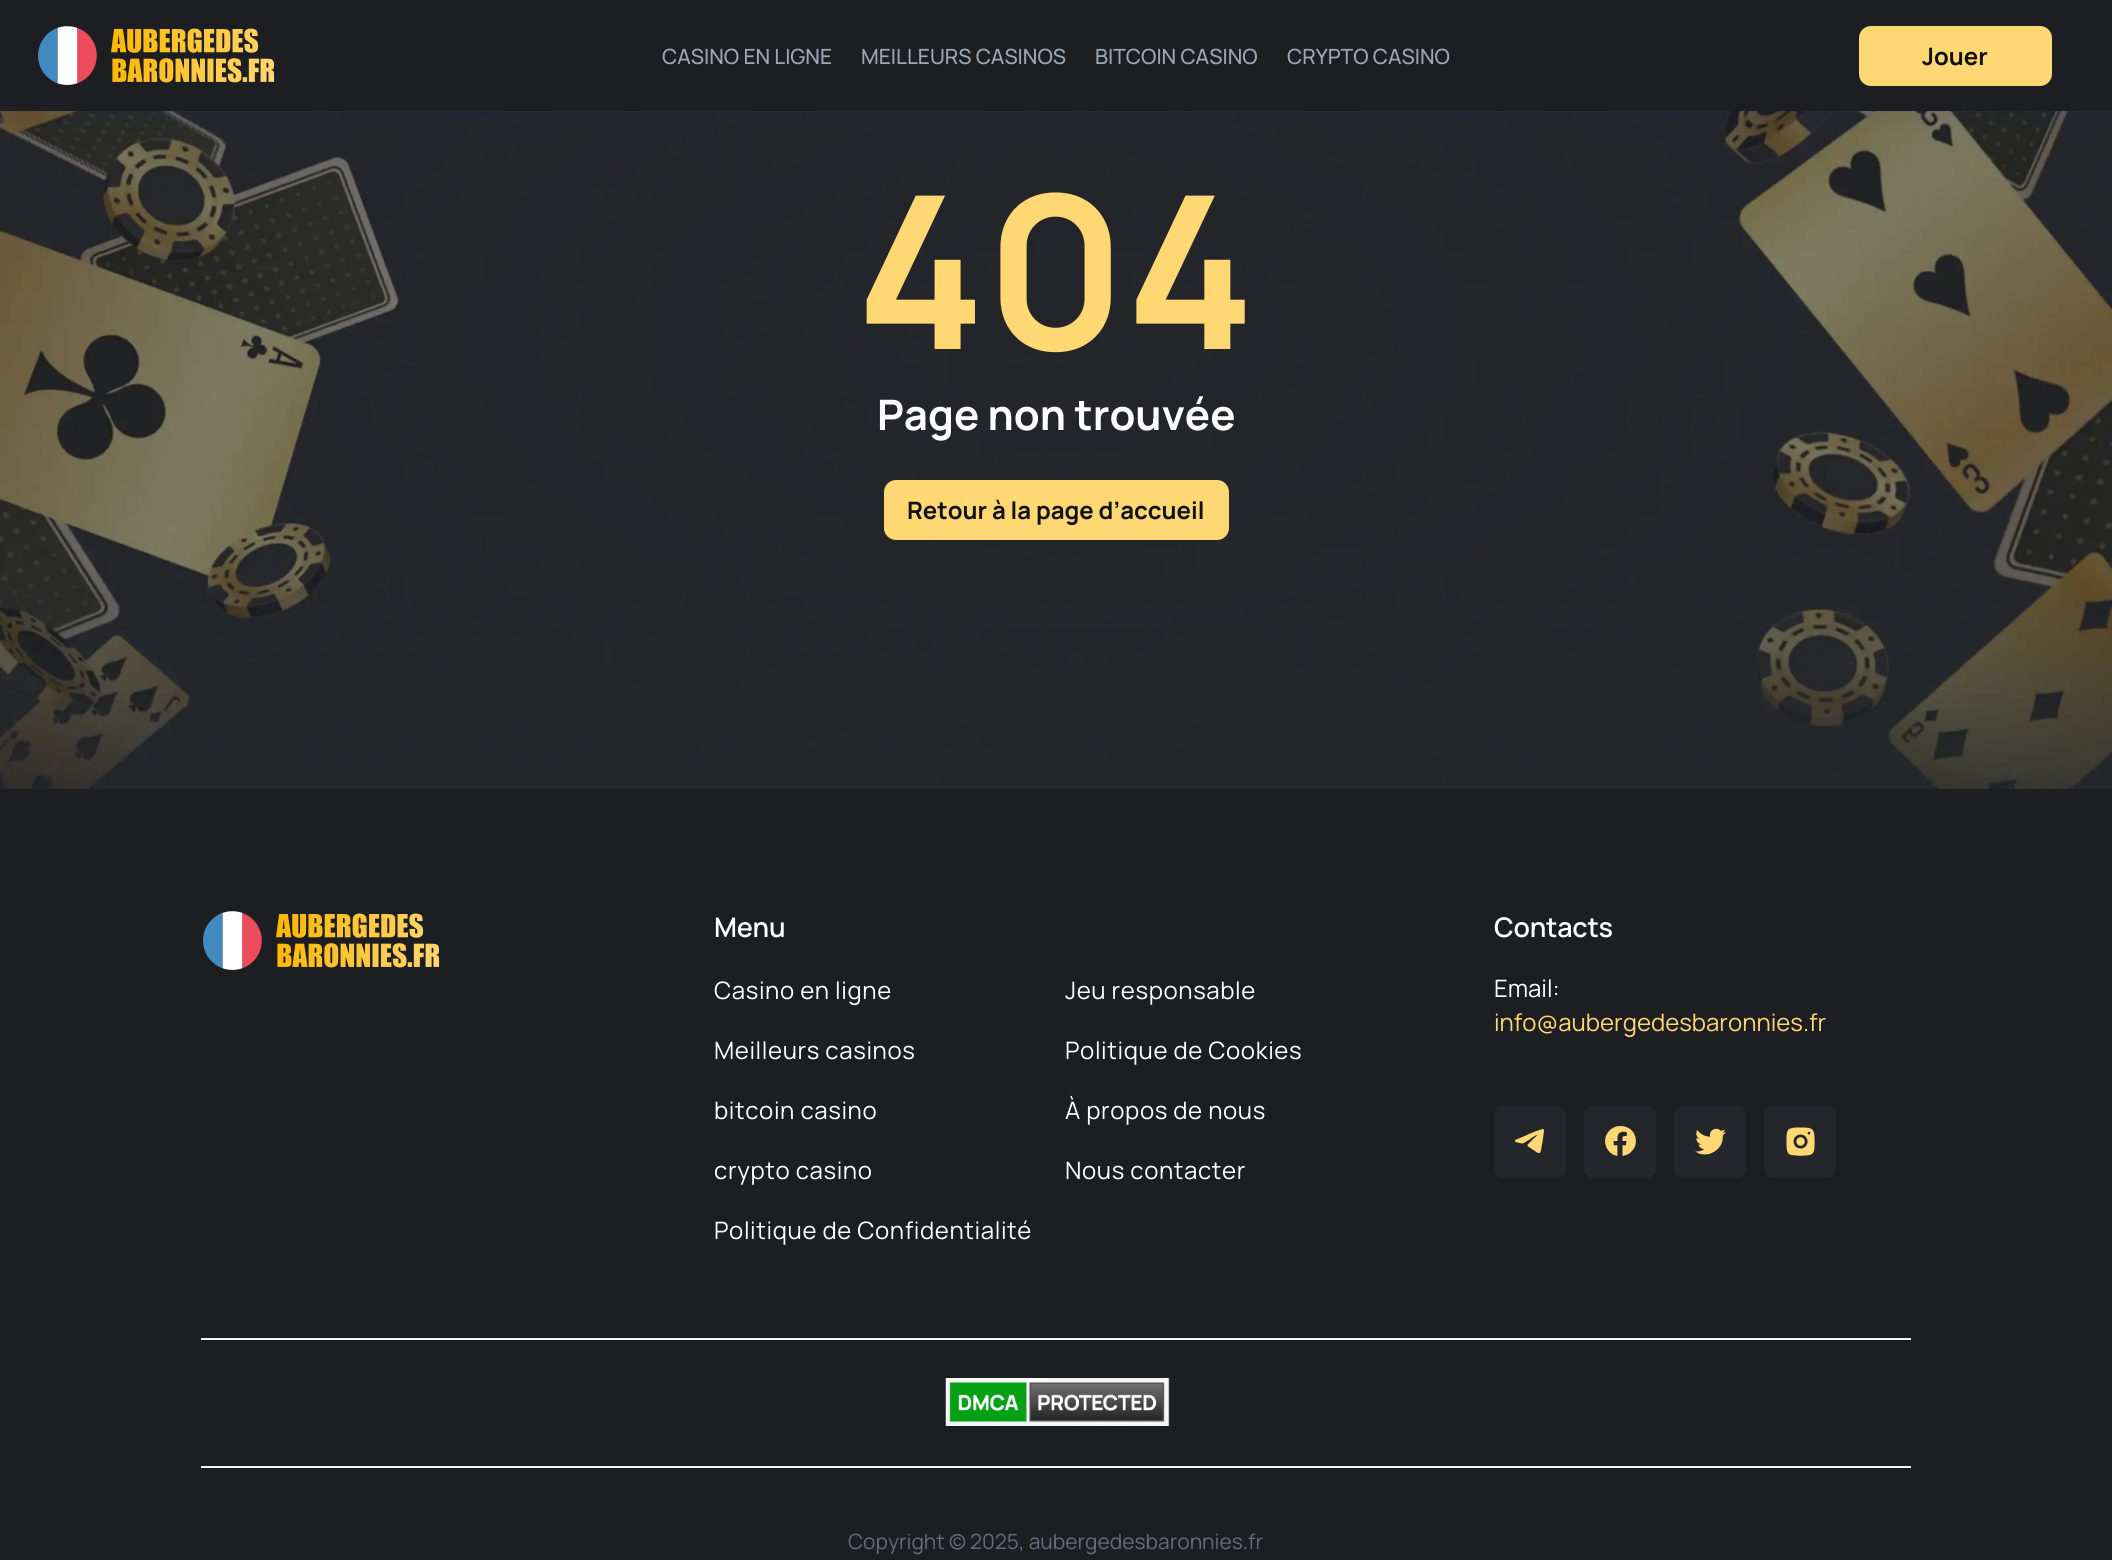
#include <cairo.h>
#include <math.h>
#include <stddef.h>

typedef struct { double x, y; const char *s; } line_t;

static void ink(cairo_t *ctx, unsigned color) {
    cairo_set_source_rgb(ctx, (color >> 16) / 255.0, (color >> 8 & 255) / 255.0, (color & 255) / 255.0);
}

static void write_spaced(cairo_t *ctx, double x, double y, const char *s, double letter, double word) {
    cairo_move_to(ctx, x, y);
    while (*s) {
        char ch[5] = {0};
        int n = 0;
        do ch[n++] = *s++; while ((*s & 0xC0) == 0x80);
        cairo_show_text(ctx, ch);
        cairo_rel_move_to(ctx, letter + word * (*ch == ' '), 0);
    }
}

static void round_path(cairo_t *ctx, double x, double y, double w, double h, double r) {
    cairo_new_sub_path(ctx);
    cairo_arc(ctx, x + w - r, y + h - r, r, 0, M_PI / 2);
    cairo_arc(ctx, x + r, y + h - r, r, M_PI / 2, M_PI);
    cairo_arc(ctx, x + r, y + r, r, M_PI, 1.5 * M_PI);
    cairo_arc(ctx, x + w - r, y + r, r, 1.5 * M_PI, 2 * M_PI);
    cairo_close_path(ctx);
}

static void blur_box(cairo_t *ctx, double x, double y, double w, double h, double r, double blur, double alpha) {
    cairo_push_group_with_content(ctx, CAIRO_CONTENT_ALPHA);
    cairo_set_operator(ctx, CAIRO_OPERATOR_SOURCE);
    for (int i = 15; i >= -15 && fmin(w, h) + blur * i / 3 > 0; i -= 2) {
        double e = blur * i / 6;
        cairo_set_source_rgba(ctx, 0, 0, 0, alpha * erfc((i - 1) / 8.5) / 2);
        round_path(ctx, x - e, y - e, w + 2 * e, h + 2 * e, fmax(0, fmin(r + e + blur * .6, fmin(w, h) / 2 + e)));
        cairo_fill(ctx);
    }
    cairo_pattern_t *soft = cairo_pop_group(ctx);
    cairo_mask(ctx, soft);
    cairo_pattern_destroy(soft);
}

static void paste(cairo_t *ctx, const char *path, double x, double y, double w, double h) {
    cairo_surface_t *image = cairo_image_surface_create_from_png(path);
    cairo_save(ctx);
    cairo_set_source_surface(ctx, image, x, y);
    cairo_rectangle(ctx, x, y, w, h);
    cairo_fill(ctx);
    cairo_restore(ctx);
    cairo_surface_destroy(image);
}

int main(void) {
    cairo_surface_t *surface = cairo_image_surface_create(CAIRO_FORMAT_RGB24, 2112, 1560);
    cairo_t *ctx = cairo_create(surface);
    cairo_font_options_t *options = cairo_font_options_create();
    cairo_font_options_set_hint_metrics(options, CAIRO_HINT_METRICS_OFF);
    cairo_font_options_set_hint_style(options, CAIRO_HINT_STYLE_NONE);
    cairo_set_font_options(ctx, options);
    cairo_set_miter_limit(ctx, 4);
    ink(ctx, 0xFFFFFF);
    cairo_paint(ctx);
    paste(ctx, "media/1.png", 0, 111, 2112, 678);
    ink(ctx, 0x1422B4);
    blur_box(ctx, 0, 3, 2112, 111, 0, 12, 0.1);
    ink(ctx, 0x1C1E22);
    cairo_rectangle(ctx, 0, 0, 2112, 111);
    cairo_fill(ctx);
    paste(ctx, "media/2.png", 38, 26, 237, 59);
    cairo_select_font_face(ctx, "Manrope Medium", CAIRO_FONT_SLANT_NORMAL, CAIRO_FONT_WEIGHT_NORMAL);
    cairo_set_font_size(ctx, 21);
    ink(ctx, 0x9BA7B4);
    {
        static const line_t items[] = {
            {662, 64, "CASINO EN LIGNE"},
            {861, 64, "MEILLEURS CASINOS"},
            {1095, 64, "BITCOIN CASINO"},
            {1287, 64, "CRYPTO CASINO"},
        };
        for (size_t i = 0; i < sizeof items / sizeof *items; i++) {
            cairo_move_to(ctx, items[i].x, items[i].y);
            cairo_show_text(ctx, items[i].s);
        }
    }
    ink(ctx, 0xFFD773);
    round_path(ctx, 1859, 26, 193, 60, 12);
    cairo_fill(ctx);
    cairo_select_font_face(ctx, "Manrope", CAIRO_FONT_SLANT_NORMAL, CAIRO_FONT_WEIGHT_BOLD);
    cairo_set_font_size(ctx, 24);
    ink(ctx, 0x111111);
    cairo_move_to(ctx, 1922, 65);
    cairo_show_text(ctx, "Jouer");
    cairo_set_font_size(ctx, 213);
    ink(ctx, 0xFFD773);
    cairo_move_to(ctx, 856, 349);
    cairo_show_text(ctx, "404");
    cairo_set_font_size(ctx, 42);
    ink(ctx, 0xFFFFFF);
    cairo_move_to(ctx, 877, 430);
    cairo_show_text(ctx, "Page non trouvée");
    ink(ctx, 0xFFD773);
    round_path(ctx, 884, 480, 345, 60, 12);
    cairo_fill(ctx);
    cairo_set_font_size(ctx, 24);
    ink(ctx, 0x111111);
    cairo_move_to(ctx, 907, 519);
    cairo_show_text(ctx, "Retour à la page d’accueil");
    ink(ctx, 0x1C1E22);
    cairo_rectangle(ctx, 0, 789, 2112, 771);
    cairo_fill(ctx);
    ink(ctx, 0xF1F3F5);
    cairo_rectangle(ctx, 201, 1338, 1710, 2);
    cairo_fill(ctx);
    paste(ctx, "media/2.png", 203, 911, 237, 59);
    cairo_select_font_face(ctx, "Manrope SemiBold", CAIRO_FONT_SLANT_NORMAL, CAIRO_FONT_WEIGHT_NORMAL);
    cairo_set_font_size(ctx, 27);
    ink(ctx, 0xFFFFFF);
    write_spaced(ctx, 714, 937, "Menu", -0.25, 0);
    cairo_select_font_face(ctx, "Manrope", CAIRO_FONT_SLANT_NORMAL, CAIRO_FONT_WEIGHT_NORMAL);
    cairo_set_font_size(ctx, 24);
    {
        static const line_t items[] = {
            {714, 999, "Casino en ligne"},
            {1065, 999, "Jeu responsable"},
            {714, 1059, "Meilleurs casinos"},
            {1065, 1059, "Politique de Cookies"},
            {714, 1119, "bitcoin casino"},
            {1065, 1119, "À propos de nous"},
            {714, 1179, "crypto casino"},
            {1065, 1179, "Nous contacter"},
            {714, 1239, "Politique de Confidentialité"},
        };
        for (size_t i = 0; i < sizeof items / sizeof *items; i++) {
            write_spaced(ctx, items[i].x, items[i].y, items[i].s, 0.6, 0);
        }
    }
    cairo_select_font_face(ctx, "Manrope SemiBold", CAIRO_FONT_SLANT_NORMAL, CAIRO_FONT_WEIGHT_NORMAL);
    cairo_set_font_size(ctx, 27);
    write_spaced(ctx, 1494, 937, "Contacts", -0.25, 0);
    cairo_select_font_face(ctx, "Manrope", CAIRO_FONT_SLANT_NORMAL, CAIRO_FONT_WEIGHT_NORMAL);
    cairo_set_font_size(ctx, 24);
    cairo_move_to(ctx, 1494, 997);
    cairo_show_text(ctx, "Email:");
    ink(ctx, 0xFFD773);
    cairo_move_to(ctx, 1494, 1031);
    cairo_show_text(ctx, "info@aubergedesbaronnies.fr");
    ink(ctx, 0x24262B);
    round_path(ctx, 1494, 1106, 72, 72, 9);
    cairo_fill(ctx);
    paste(ctx, "media/3.png", 1515, 1129, 29, 24);
    round_path(ctx, 1584, 1106, 72, 72, 9);
    cairo_fill(ctx);
    paste(ctx, "media/4.png", 1605, 1126, 31, 30);
    round_path(ctx, 1674, 1106, 72, 72, 9);
    cairo_fill(ctx);
    paste(ctx, "media/5.png", 1695, 1128, 31, 27);
    round_path(ctx, 1764, 1106, 72, 72, 9);
    cairo_fill(ctx);
    paste(ctx, "media/6.png", 1786, 1127, 29, 29);
    ink(ctx, 0xF1F3F5);
    cairo_rectangle(ctx, 201, 1466, 1710, 2);
    cairo_fill(ctx);
    paste(ctx, "media/7.png", 945, 1378, 225, 48);
    cairo_set_font_size(ctx, 21);
    ink(ctx, 0x666B7A);
    cairo_move_to(ctx, 848, 1549);
    cairo_show_text(ctx, "Copyright © 2025, aubergedesbaronnies.fr");
    cairo_surface_write_to_png(surface, "image.png");
    cairo_font_options_destroy(options);
    cairo_destroy(ctx);
    cairo_surface_destroy(surface);
    return 0;
}
